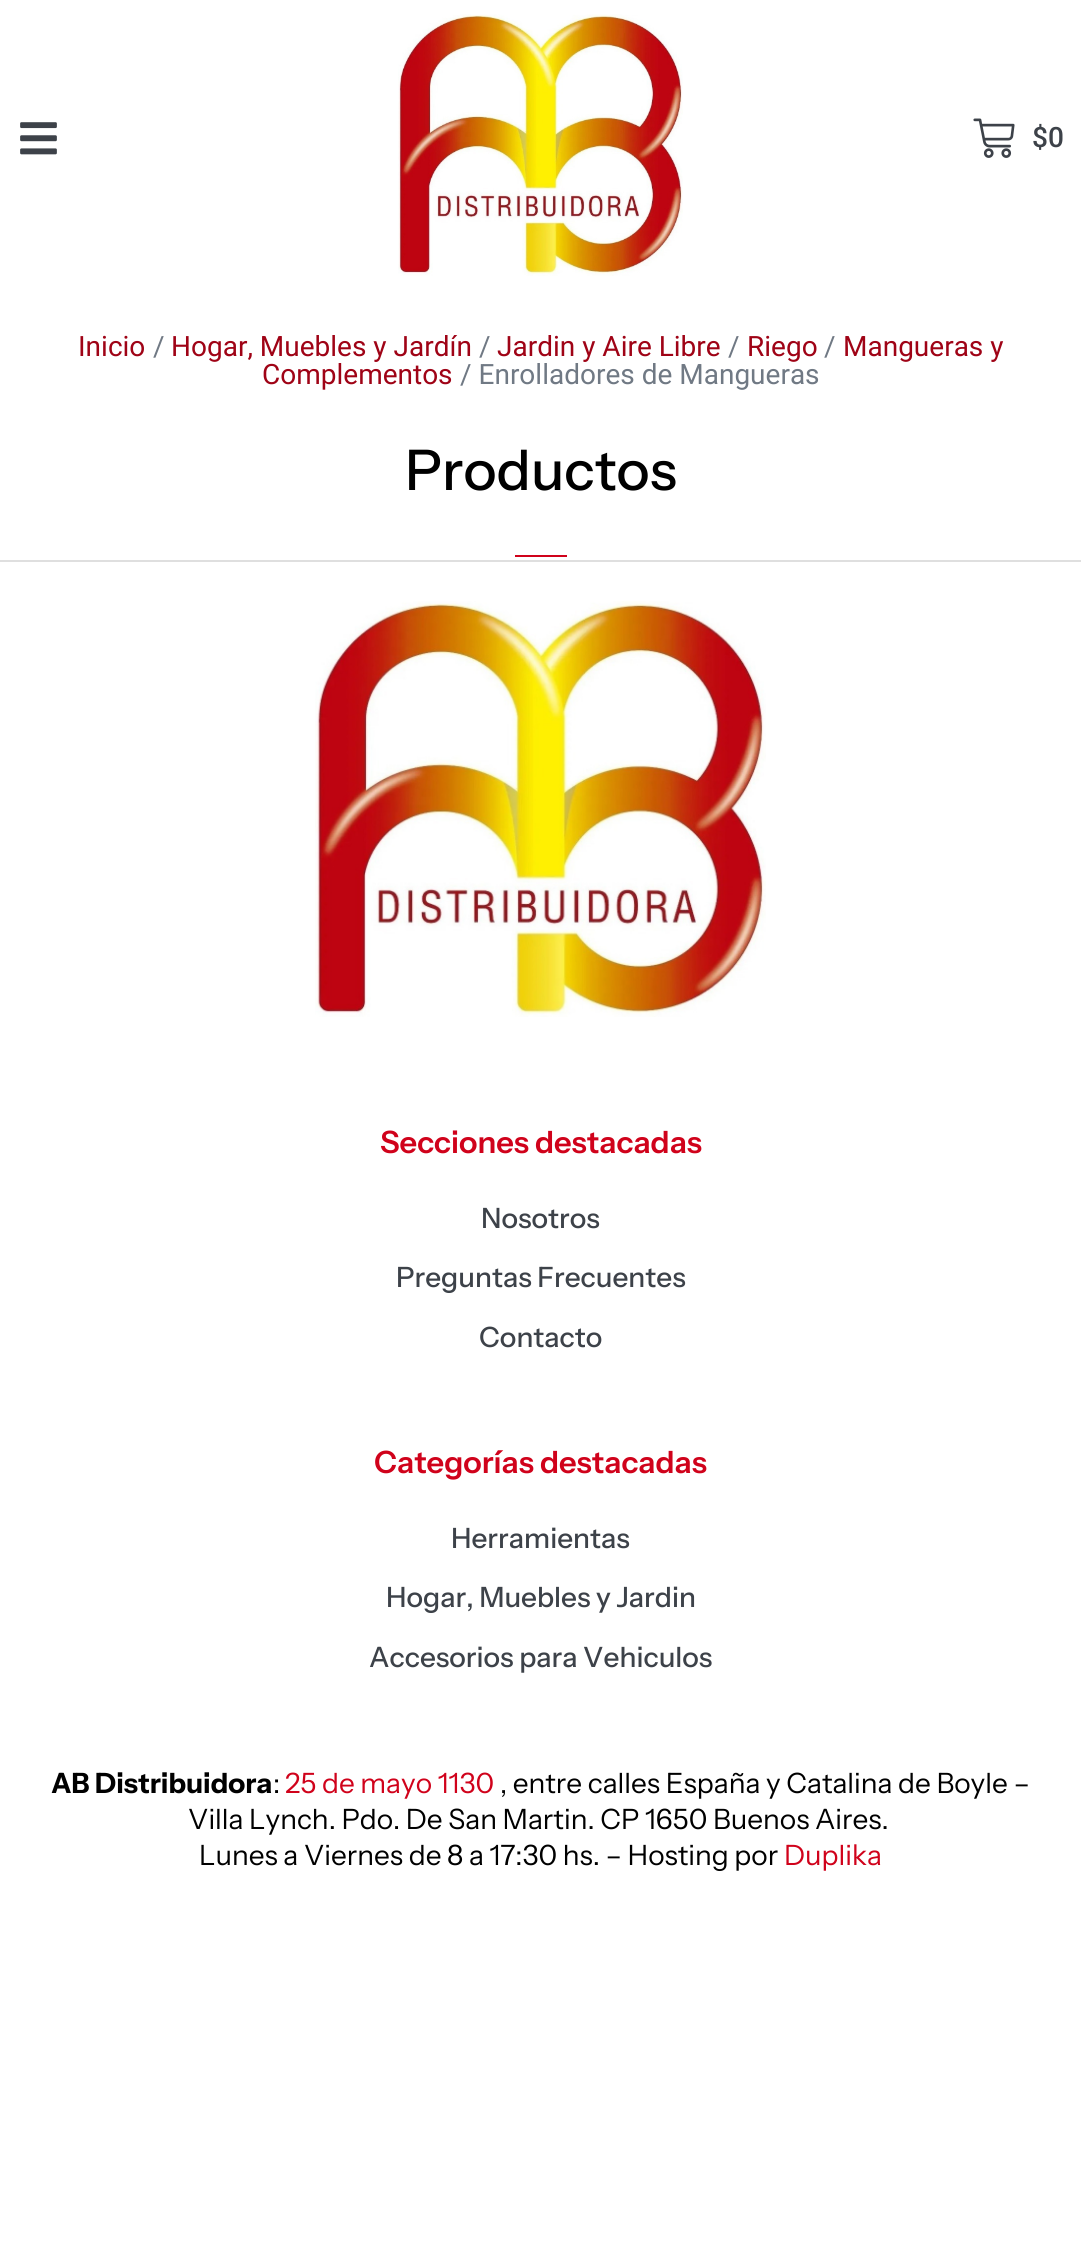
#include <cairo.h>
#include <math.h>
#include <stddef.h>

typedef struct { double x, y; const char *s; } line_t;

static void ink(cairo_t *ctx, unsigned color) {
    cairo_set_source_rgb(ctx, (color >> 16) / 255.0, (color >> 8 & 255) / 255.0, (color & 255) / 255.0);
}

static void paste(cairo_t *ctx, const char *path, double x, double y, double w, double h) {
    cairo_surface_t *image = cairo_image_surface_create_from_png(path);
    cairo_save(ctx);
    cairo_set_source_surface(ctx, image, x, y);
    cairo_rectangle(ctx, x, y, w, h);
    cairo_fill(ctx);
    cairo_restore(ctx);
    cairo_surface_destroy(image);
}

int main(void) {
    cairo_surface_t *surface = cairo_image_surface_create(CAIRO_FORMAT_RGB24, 1081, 2254);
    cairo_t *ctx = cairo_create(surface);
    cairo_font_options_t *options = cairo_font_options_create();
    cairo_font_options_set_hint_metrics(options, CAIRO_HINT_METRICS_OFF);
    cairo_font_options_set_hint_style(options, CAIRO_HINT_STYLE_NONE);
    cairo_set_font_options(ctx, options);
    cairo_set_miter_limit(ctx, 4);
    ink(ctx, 0xFFFFFF);
    cairo_paint(ctx);
    paste(ctx, "media/1.png", 20, 122, 37, 33);
    paste(ctx, "media/2.png", 398, 14, 285, 262);
    paste(ctx, "media/3.png", 973, 118, 42, 40);
    cairo_select_font_face(ctx, "Roboto Medium", CAIRO_FONT_SLANT_NORMAL, CAIRO_FONT_WEIGHT_NORMAL);
    cairo_set_font_size(ctx, 28);
    ink(ctx, 0x3D4249);
    cairo_move_to(ctx, 1032, 147);
    cairo_show_text(ctx, "$0");
    cairo_select_font_face(ctx, "Roboto", CAIRO_FONT_SLANT_NORMAL, CAIRO_FONT_WEIGHT_NORMAL);
    ink(ctx, 0x9F0316);
    cairo_move_to(ctx, 78, 356);
    cairo_show_text(ctx, "Inicio");
    ink(ctx, 0x707984);
    cairo_move_to(ctx, 153, 356);
    cairo_show_text(ctx, "/");
    ink(ctx, 0x9F0316);
    cairo_move_to(ctx, 171, 356);
    cairo_show_text(ctx, "Hogar, Muebles y Jardín");
    ink(ctx, 0x707984);
    cairo_move_to(ctx, 479, 356);
    cairo_show_text(ctx, "/");
    ink(ctx, 0x9F0316);
    cairo_move_to(ctx, 497, 356);
    cairo_show_text(ctx, "Jardin y Aire Libre");
    ink(ctx, 0x707984);
    cairo_move_to(ctx, 728, 356);
    cairo_show_text(ctx, "/");
    ink(ctx, 0x9F0316);
    cairo_move_to(ctx, 747, 356);
    cairo_show_text(ctx, "Riego");
    ink(ctx, 0x707984);
    cairo_move_to(ctx, 824, 356);
    cairo_show_text(ctx, "/");
    ink(ctx, 0x9F0316);
    cairo_move_to(ctx, 843, 356);
    cairo_show_text(ctx, "Mangueras y");
    cairo_move_to(ctx, 262, 384);
    cairo_show_text(ctx, "Complementos");
    ink(ctx, 0x707984);
    cairo_move_to(ctx, 460, 384);
    cairo_show_text(ctx, "/ Enrolladores de Mangueras");
    cairo_select_font_face(ctx, "Instrument Sans Medium", CAIRO_FONT_SLANT_NORMAL, CAIRO_FONT_WEIGHT_NORMAL);
    cairo_set_font_size(ctx, 56);
    ink(ctx, 0x000000);
    cairo_move_to(ctx, 405, 490);
    cairo_show_text(ctx, "Productos");
    ink(ctx, 0xD0021B);
    cairo_rectangle(ctx, 515, 555, 52, 2);
    cairo_fill(ctx);
    ink(ctx, 0xDFDFDF);
    cairo_rectangle(ctx, 0, 560, 1081, 2);
    cairo_fill(ctx);
    paste(ctx, "media/4.png", 315, 601, 451, 416);
    cairo_select_font_face(ctx, "Instrument Sans SemiBold", CAIRO_FONT_SLANT_NORMAL, CAIRO_FONT_WEIGHT_NORMAL);
    cairo_set_font_size(ctx, 30.75);
    ink(ctx, 0xD0021B);
    cairo_move_to(ctx, 380, 1153);
    cairo_show_text(ctx, "Secciones destacadas");
    cairo_select_font_face(ctx, "Instrument Sans Medium", CAIRO_FONT_SLANT_NORMAL, CAIRO_FONT_WEIGHT_NORMAL);
    cairo_set_font_size(ctx, 28);
    ink(ctx, 0x3D4249);
    {
        static const line_t items[] = {
            {481, 1228, "Nosotros"},
            {396, 1287, "Preguntas Frecuentes"},
            {479, 1347, "Contacto"},
        };
        for (size_t i = 0; i < sizeof items / sizeof *items; i++) {
            cairo_move_to(ctx, items[i].x, items[i].y);
            cairo_show_text(ctx, items[i].s);
        }
    }
    cairo_select_font_face(ctx, "Instrument Sans SemiBold", CAIRO_FONT_SLANT_NORMAL, CAIRO_FONT_WEIGHT_NORMAL);
    cairo_set_font_size(ctx, 30.75);
    ink(ctx, 0xD0021B);
    cairo_move_to(ctx, 374, 1473);
    cairo_show_text(ctx, "Categorías destacadas");
    cairo_select_font_face(ctx, "Instrument Sans Medium", CAIRO_FONT_SLANT_NORMAL, CAIRO_FONT_WEIGHT_NORMAL);
    cairo_set_font_size(ctx, 28);
    ink(ctx, 0x3D4249);
    {
        static const line_t items[] = {
            {451, 1548, "Herramientas"},
            {386, 1607, "Hogar, Muebles y Jardin"},
            {369, 1667, "Accesorios para Vehiculos"},
        };
        for (size_t i = 0; i < sizeof items / sizeof *items; i++) {
            cairo_move_to(ctx, items[i].x, items[i].y);
            cairo_show_text(ctx, items[i].s);
        }
    }
    cairo_select_font_face(ctx, "Instrument Sans", CAIRO_FONT_SLANT_NORMAL, CAIRO_FONT_WEIGHT_BOLD);
    ink(ctx, 0x000000);
    cairo_move_to(ctx, 51, 1793);
    cairo_show_text(ctx, "AB Distribuidora");
    cairo_select_font_face(ctx, "Instrument Sans", CAIRO_FONT_SLANT_NORMAL, CAIRO_FONT_WEIGHT_NORMAL);
    cairo_move_to(ctx, 273, 1793);
    cairo_show_text(ctx, ":");
    ink(ctx, 0xD0021B);
    cairo_move_to(ctx, 285, 1793);
    cairo_show_text(ctx, "25 de mayo 1130");
    ink(ctx, 0x000000);
    {
        static const line_t items[] = {
            {500, 1793, ", entre calles España y Catalina de Boyle –"},
            {188, 1829, "Villa Lynch. Pdo. De San Martin. CP 1650 Buenos Aires."},
            {199, 1865, "Lunes a Viernes de 8 a 17:30 hs. – Hosting por"},
        };
        for (size_t i = 0; i < sizeof items / sizeof *items; i++) {
            cairo_move_to(ctx, items[i].x, items[i].y);
            cairo_show_text(ctx, items[i].s);
        }
    }
    ink(ctx, 0xD0021B);
    cairo_move_to(ctx, 784, 1865);
    cairo_show_text(ctx, "Duplika");
    cairo_surface_write_to_png(surface, "image.png");
    cairo_font_options_destroy(options);
    cairo_destroy(ctx);
    cairo_surface_destroy(surface);
    return 0;
}
